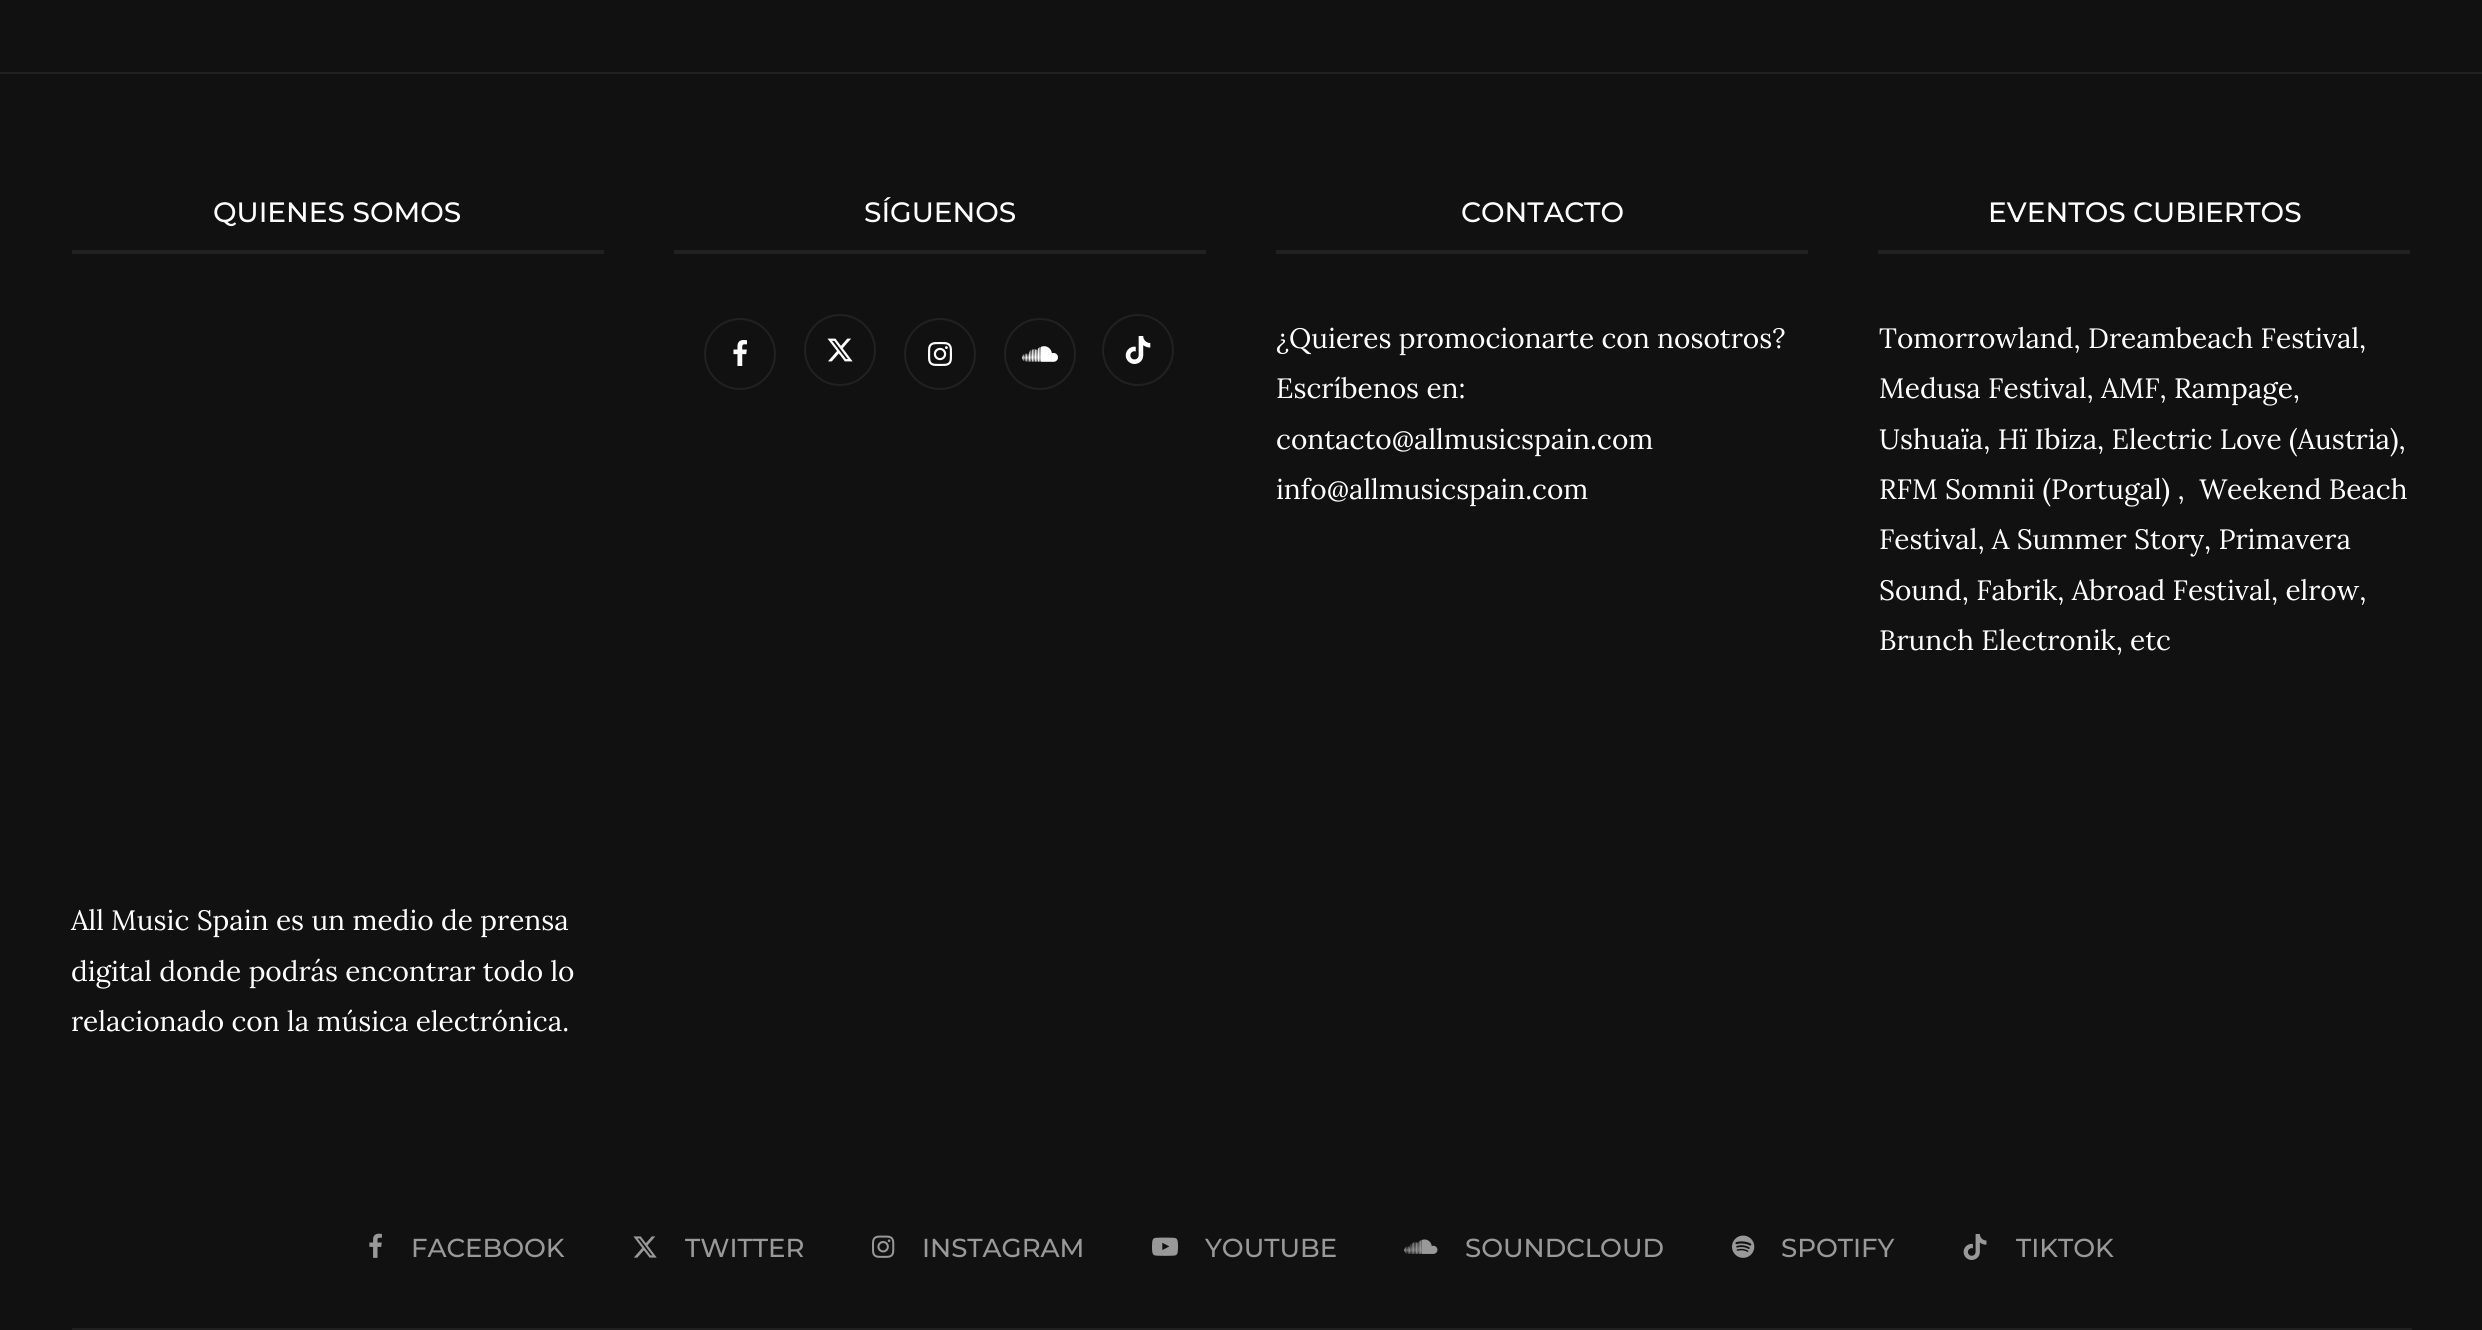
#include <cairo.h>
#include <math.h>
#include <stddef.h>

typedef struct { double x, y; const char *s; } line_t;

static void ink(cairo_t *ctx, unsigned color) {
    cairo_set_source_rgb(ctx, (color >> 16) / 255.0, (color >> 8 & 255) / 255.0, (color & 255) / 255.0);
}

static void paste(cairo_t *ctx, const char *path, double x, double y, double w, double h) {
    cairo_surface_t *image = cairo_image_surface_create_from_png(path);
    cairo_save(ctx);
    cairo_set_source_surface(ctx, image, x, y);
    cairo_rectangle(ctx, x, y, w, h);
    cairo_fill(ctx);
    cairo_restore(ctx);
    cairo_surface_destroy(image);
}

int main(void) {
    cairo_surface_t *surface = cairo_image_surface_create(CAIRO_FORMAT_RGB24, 2482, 1330);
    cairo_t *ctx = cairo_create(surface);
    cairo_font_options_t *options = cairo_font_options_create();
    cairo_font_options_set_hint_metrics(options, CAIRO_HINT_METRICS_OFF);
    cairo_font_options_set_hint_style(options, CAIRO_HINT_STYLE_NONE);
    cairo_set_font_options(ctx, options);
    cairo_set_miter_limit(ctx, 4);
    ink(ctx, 0x111111);
    cairo_paint(ctx);
    ink(ctx, 0x212121);
    cairo_rectangle(ctx, 0, 72, 2482, 2);
    cairo_fill(ctx);
    cairo_rectangle(ctx, 72, 250, 532, 4);
    cairo_fill(ctx);
    cairo_select_font_face(ctx, "Montserrat Medium", CAIRO_FONT_SLANT_NORMAL, CAIRO_FONT_WEIGHT_NORMAL);
    cairo_set_font_size(ctx, 28);
    ink(ctx, 0xFFFFFF);
    cairo_move_to(ctx, 213, 222);
    cairo_show_text(ctx, "QUIENES SOMOS");
    cairo_select_font_face(ctx, "Lora", CAIRO_FONT_SLANT_NORMAL, CAIRO_FONT_WEIGHT_NORMAL);
    {
        static const line_t items[] = {
            {71, 930, "All Music Spain es un medio de prensa"},
            {71, 981, "digital donde podrás encontrar todo lo"},
            {71, 1031, "relacionado con la música electrónica."},
        };
        for (size_t i = 0; i < sizeof items / sizeof *items; i++) {
            cairo_move_to(ctx, items[i].x, items[i].y);
            cairo_show_text(ctx, items[i].s);
        }
    }
    ink(ctx, 0x212121);
    cairo_rectangle(ctx, 674, 250, 532, 4);
    cairo_fill(ctx);
    cairo_select_font_face(ctx, "Montserrat Medium", CAIRO_FONT_SLANT_NORMAL, CAIRO_FONT_WEIGHT_NORMAL);
    ink(ctx, 0xFFFFFF);
    cairo_move_to(ctx, 864, 222);
    cairo_show_text(ctx, "SÍGUENOS");
    cairo_new_path(ctx);
    cairo_arc(ctx, 740, 354, 35, 0, 2 * M_PI);
    ink(ctx, 0x212121);
    cairo_stroke(ctx);
    paste(ctx, "media/1.png", 733, 340, 14, 26);
    cairo_arc(ctx, 840, 350, 35, 0, 2 * M_PI);
    cairo_stroke(ctx);
    paste(ctx, "media/2.png", 827, 338, 26, 24);
    cairo_arc(ctx, 940, 354, 35, 0, 2 * M_PI);
    cairo_stroke(ctx);
    paste(ctx, "media/3.png", 928, 342, 24, 24);
    cairo_arc(ctx, 1040, 354, 35, 0, 2 * M_PI);
    cairo_stroke(ctx);
    paste(ctx, "media/4.png", 1022, 346, 36, 16);
    cairo_arc(ctx, 1138, 350, 35, 0, 2 * M_PI);
    cairo_stroke(ctx);
    paste(ctx, "media/5.png", 1125, 336, 26, 28);
    cairo_rectangle(ctx, 1276, 250, 532, 4);
    cairo_fill(ctx);
    ink(ctx, 0xFFFFFF);
    cairo_move_to(ctx, 1461, 222);
    cairo_show_text(ctx, "CONTACTO");
    cairo_select_font_face(ctx, "Lora", CAIRO_FONT_SLANT_NORMAL, CAIRO_FONT_WEIGHT_NORMAL);
    {
        static const line_t items[] = {
            {1276, 348, "¿Quieres promocionarte con nosotros?"},
            {1276, 398, "Escríbenos en:"},
            {1276, 449, "contacto@allmusicspain.com"},
            {1276, 499, "info@allmusicspain.com"},
        };
        for (size_t i = 0; i < sizeof items / sizeof *items; i++) {
            cairo_move_to(ctx, items[i].x, items[i].y);
            cairo_show_text(ctx, items[i].s);
        }
    }
    ink(ctx, 0x212121);
    cairo_rectangle(ctx, 1878, 250, 532, 4);
    cairo_fill(ctx);
    cairo_select_font_face(ctx, "Montserrat Medium", CAIRO_FONT_SLANT_NORMAL, CAIRO_FONT_WEIGHT_NORMAL);
    ink(ctx, 0xFFFFFF);
    cairo_move_to(ctx, 1988, 222);
    cairo_show_text(ctx, "EVENTOS CUBIERTOS");
    cairo_select_font_face(ctx, "Lora", CAIRO_FONT_SLANT_NORMAL, CAIRO_FONT_WEIGHT_NORMAL);
    {
        static const line_t items[] = {
            {1879, 348, "Tomorrowland, Dreambeach Festival,"},
            {1879, 398, "Medusa Festival, AMF, Rampage,"},
            {1879, 449, "Ushuaïa, Hï Ibiza, Electric Love (Austria),"},
            {1879, 499, "RFM Somnii (Portugal) ,  Weekend Beach"},
            {1879, 549, "Festival, A Summer Story, Primavera"},
            {1879, 600, "Sound, Fabrik, Abroad Festival, elrow,"},
            {1879, 650, "Brunch Electronik, etc"},
        };
        for (size_t i = 0; i < sizeof items / sizeof *items; i++) {
            cairo_move_to(ctx, items[i].x, items[i].y);
            cairo_show_text(ctx, items[i].s);
        }
    }
    ink(ctx, 0x202020);
    cairo_rectangle(ctx, 72, 1328, 2340, 2);
    cairo_fill(ctx);
    paste(ctx, "media/6.png", 369, 1233, 13, 25);
    cairo_select_font_face(ctx, "Montserrat Medium", CAIRO_FONT_SLANT_NORMAL, CAIRO_FONT_WEIGHT_NORMAL);
    cairo_set_font_size(ctx, 26);
    ink(ctx, 0x999999);
    cairo_move_to(ctx, 411, 1257);
    cairo_show_text(ctx, "FACEBOOK");
    paste(ctx, "media/7.png", 633, 1236, 24, 22);
    cairo_move_to(ctx, 685, 1257);
    cairo_show_text(ctx, "TWITTER");
    paste(ctx, "media/8.png", 872, 1235, 23, 23);
    cairo_move_to(ctx, 922, 1257);
    cairo_show_text(ctx, "INSTAGRAM");
    paste(ctx, "media/9.png", 1152, 1237, 26, 19);
    cairo_move_to(ctx, 1205, 1257);
    cairo_show_text(ctx, "YOUTUBE");
    paste(ctx, "media/10.png", 1404, 1239, 34, 15);
    cairo_move_to(ctx, 1465, 1257);
    cairo_show_text(ctx, "SOUNDCLOUD");
    paste(ctx, "media/11.png", 1732, 1235, 23, 23);
    cairo_move_to(ctx, 1781, 1257);
    cairo_show_text(ctx, "SPOTIFY");
    paste(ctx, "media/12.png", 1963, 1234, 24, 26);
    cairo_move_to(ctx, 2016, 1257);
    cairo_show_text(ctx, "TIKTOK");
    cairo_surface_write_to_png(surface, "image.png");
    cairo_font_options_destroy(options);
    cairo_destroy(ctx);
    cairo_surface_destroy(surface);
    return 0;
}
